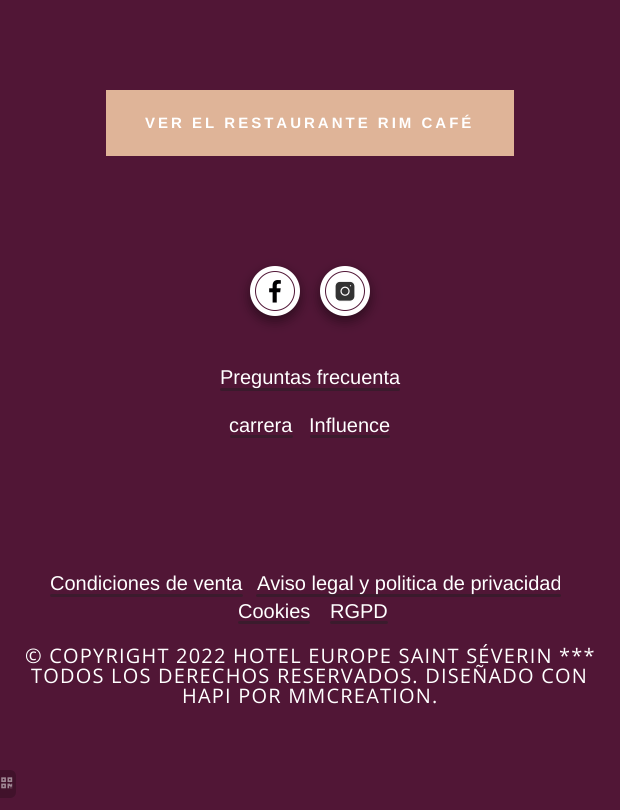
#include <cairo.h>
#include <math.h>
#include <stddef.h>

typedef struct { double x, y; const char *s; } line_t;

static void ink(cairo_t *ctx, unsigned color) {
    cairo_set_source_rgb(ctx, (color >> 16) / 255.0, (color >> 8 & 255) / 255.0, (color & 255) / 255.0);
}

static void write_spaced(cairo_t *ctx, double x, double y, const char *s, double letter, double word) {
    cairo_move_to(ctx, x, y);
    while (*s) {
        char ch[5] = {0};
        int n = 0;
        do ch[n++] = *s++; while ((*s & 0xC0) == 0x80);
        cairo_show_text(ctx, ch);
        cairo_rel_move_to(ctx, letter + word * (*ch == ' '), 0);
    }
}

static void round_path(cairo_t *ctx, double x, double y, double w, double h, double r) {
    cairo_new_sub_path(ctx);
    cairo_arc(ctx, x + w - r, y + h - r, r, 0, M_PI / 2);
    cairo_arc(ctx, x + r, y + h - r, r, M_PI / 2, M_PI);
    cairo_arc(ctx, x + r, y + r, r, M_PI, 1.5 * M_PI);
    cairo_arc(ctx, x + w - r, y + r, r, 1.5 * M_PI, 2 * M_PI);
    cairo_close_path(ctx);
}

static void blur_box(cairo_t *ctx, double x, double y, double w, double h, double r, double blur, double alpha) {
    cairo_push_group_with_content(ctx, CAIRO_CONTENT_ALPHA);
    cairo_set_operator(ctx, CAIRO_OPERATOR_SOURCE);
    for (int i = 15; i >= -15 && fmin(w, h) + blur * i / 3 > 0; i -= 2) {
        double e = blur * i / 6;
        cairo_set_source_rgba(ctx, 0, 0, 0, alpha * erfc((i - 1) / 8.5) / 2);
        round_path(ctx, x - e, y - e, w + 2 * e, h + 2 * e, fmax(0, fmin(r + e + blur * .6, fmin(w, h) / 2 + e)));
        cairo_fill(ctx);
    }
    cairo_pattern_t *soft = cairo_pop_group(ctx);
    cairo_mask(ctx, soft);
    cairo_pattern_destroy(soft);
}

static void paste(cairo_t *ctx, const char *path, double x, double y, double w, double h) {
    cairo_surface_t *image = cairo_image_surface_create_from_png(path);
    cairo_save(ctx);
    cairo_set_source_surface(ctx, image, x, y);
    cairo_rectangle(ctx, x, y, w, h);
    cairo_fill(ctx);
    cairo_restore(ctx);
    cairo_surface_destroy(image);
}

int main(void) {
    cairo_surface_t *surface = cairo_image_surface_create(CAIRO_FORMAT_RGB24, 620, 810);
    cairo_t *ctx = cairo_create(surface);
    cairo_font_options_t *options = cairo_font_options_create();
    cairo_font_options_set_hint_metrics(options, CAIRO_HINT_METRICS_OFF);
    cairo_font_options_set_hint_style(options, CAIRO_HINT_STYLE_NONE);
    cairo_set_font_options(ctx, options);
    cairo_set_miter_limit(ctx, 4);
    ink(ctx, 0x511636);
    cairo_paint(ctx);
    ink(ctx, 0xDFB498);
    cairo_rectangle(ctx, 106, 90, 408, 66);
    cairo_fill(ctx);
    cairo_select_font_face(ctx, "Liberation Sans", CAIRO_FONT_SLANT_NORMAL, CAIRO_FONT_WEIGHT_BOLD);
    cairo_set_font_size(ctx, 15);
    ink(ctx, 0xFFFFFF);
    write_spaced(ctx, 145, 128, "VER EL RESTAURANTE RIM CAFÉ", 3, 0);
    ink(ctx, 0x000000);
    blur_box(ctx, 250, 271, 50, 50, 25, 6, 0.45);
    ink(ctx, 0xFFFFFF);
    cairo_arc(ctx, 275, 291, 25, 0, 2 * M_PI);
    cairo_fill(ctx);
    paste(ctx, "media/1.png", 269, 280, 12, 23);
    cairo_arc(ctx, 275, 291, 19.5, 0, 2 * M_PI);
    ink(ctx, 0x511636);
    cairo_set_line_width(ctx, 1);
    cairo_stroke(ctx);
    ink(ctx, 0x000000);
    blur_box(ctx, 320, 271, 50, 50, 25, 6, 0.45);
    ink(ctx, 0xFFFFFF);
    cairo_arc(ctx, 345, 291, 25, 0, 2 * M_PI);
    cairo_fill(ctx);
    paste(ctx, "media/2.png", 335, 281, 20, 21);
    cairo_arc(ctx, 345, 291, 19.5, 0, 2 * M_PI);
    ink(ctx, 0x511636);
    cairo_stroke(ctx);
    cairo_select_font_face(ctx, "Liberation Sans", CAIRO_FONT_SLANT_NORMAL, CAIRO_FONT_WEIGHT_NORMAL);
    cairo_set_font_size(ctx, 20);
    ink(ctx, 0xFFFFFF);
    cairo_move_to(ctx, 220, 384);
    cairo_show_text(ctx, "Preguntas frecuenta");
    cairo_set_source_rgba(ctx, 0.129, 0.129, 0.129, 0.45);
    round_path(ctx, 220, 388, 180, 3, 1.5);
    cairo_fill(ctx);
    ink(ctx, 0xFFFFFF);
    cairo_move_to(ctx, 229, 432);
    cairo_show_text(ctx, "carrera");
    ink(ctx, 0x3B1B2D);
    round_path(ctx, 230, 435, 63, 3, 1.5);
    cairo_fill(ctx);
    ink(ctx, 0xFFFFFF);
    cairo_move_to(ctx, 309, 432);
    cairo_show_text(ctx, "Influence");
    ink(ctx, 0x3B1B2D);
    round_path(ctx, 310, 435, 80, 3, 1.5);
    cairo_fill(ctx);
    ink(ctx, 0xFFFFFF);
    cairo_move_to(ctx, 50, 590);
    cairo_show_text(ctx, "Condiciones de venta");
    ink(ctx, 0x3B1B2D);
    round_path(ctx, 50, 594, 193, 3, 1.5);
    cairo_fill(ctx);
    ink(ctx, 0xFFFFFF);
    cairo_move_to(ctx, 257, 590);
    cairo_show_text(ctx, "Aviso legal y politica de privacidad");
    cairo_set_source_rgba(ctx, 0.129, 0.129, 0.129, 0.45);
    round_path(ctx, 256, 594, 305, 3, 1.5);
    cairo_fill(ctx);
    ink(ctx, 0xFFFFFF);
    cairo_move_to(ctx, 238, 618);
    cairo_show_text(ctx, "Cookies");
    ink(ctx, 0x3B1B2D);
    round_path(ctx, 238, 621, 72, 3, 1.5);
    cairo_fill(ctx);
    ink(ctx, 0xFFFFFF);
    cairo_move_to(ctx, 330, 618);
    cairo_show_text(ctx, "RGPD");
    ink(ctx, 0x3B1B2D);
    round_path(ctx, 330, 621, 58, 3, 1.5);
    cairo_fill(ctx);
    cairo_select_font_face(ctx, "Open Sans", CAIRO_FONT_SLANT_NORMAL, CAIRO_FONT_WEIGHT_NORMAL);
    ink(ctx, 0xFFFFFF);
    {
        static const line_t items[] = {
            {25, 663, "© COPYRIGHT 2022 HOTEL EUROPE SAINT SÉVERIN ***"},
            {31, 683, "TODOS LOS DERECHOS RESERVADOS. DISEÑADO CON"},
            {182, 703, "HAPI POR MMCREATION."},
        };
        for (size_t i = 0; i < sizeof items / sizeof *items; i++) {
            write_spaced(ctx, items[i].x, items[i].y, items[i].s, 1.2, 0);
        }
    }
    ink(ctx, 0x41122B);
    cairo_new_path(ctx);
    cairo_move_to(ctx, 0, 770);
    cairo_line_to(ctx, 10, 770);
    cairo_curve_to(ctx, 13.5, 770, 16, 772.5, 16, 776);
    cairo_line_to(ctx, 16, 792);
    cairo_curve_to(ctx, 16, 795.5, 13.5, 798, 10, 798);
    cairo_line_to(ctx, 0, 798);
    cairo_close_path(ctx);
    cairo_fill(ctx);
    paste(ctx, "media/3.png", 1, 777, 12, 12);
    cairo_surface_write_to_png(surface, "image.png");
    cairo_font_options_destroy(options);
    cairo_destroy(ctx);
    cairo_surface_destroy(surface);
    return 0;
}
